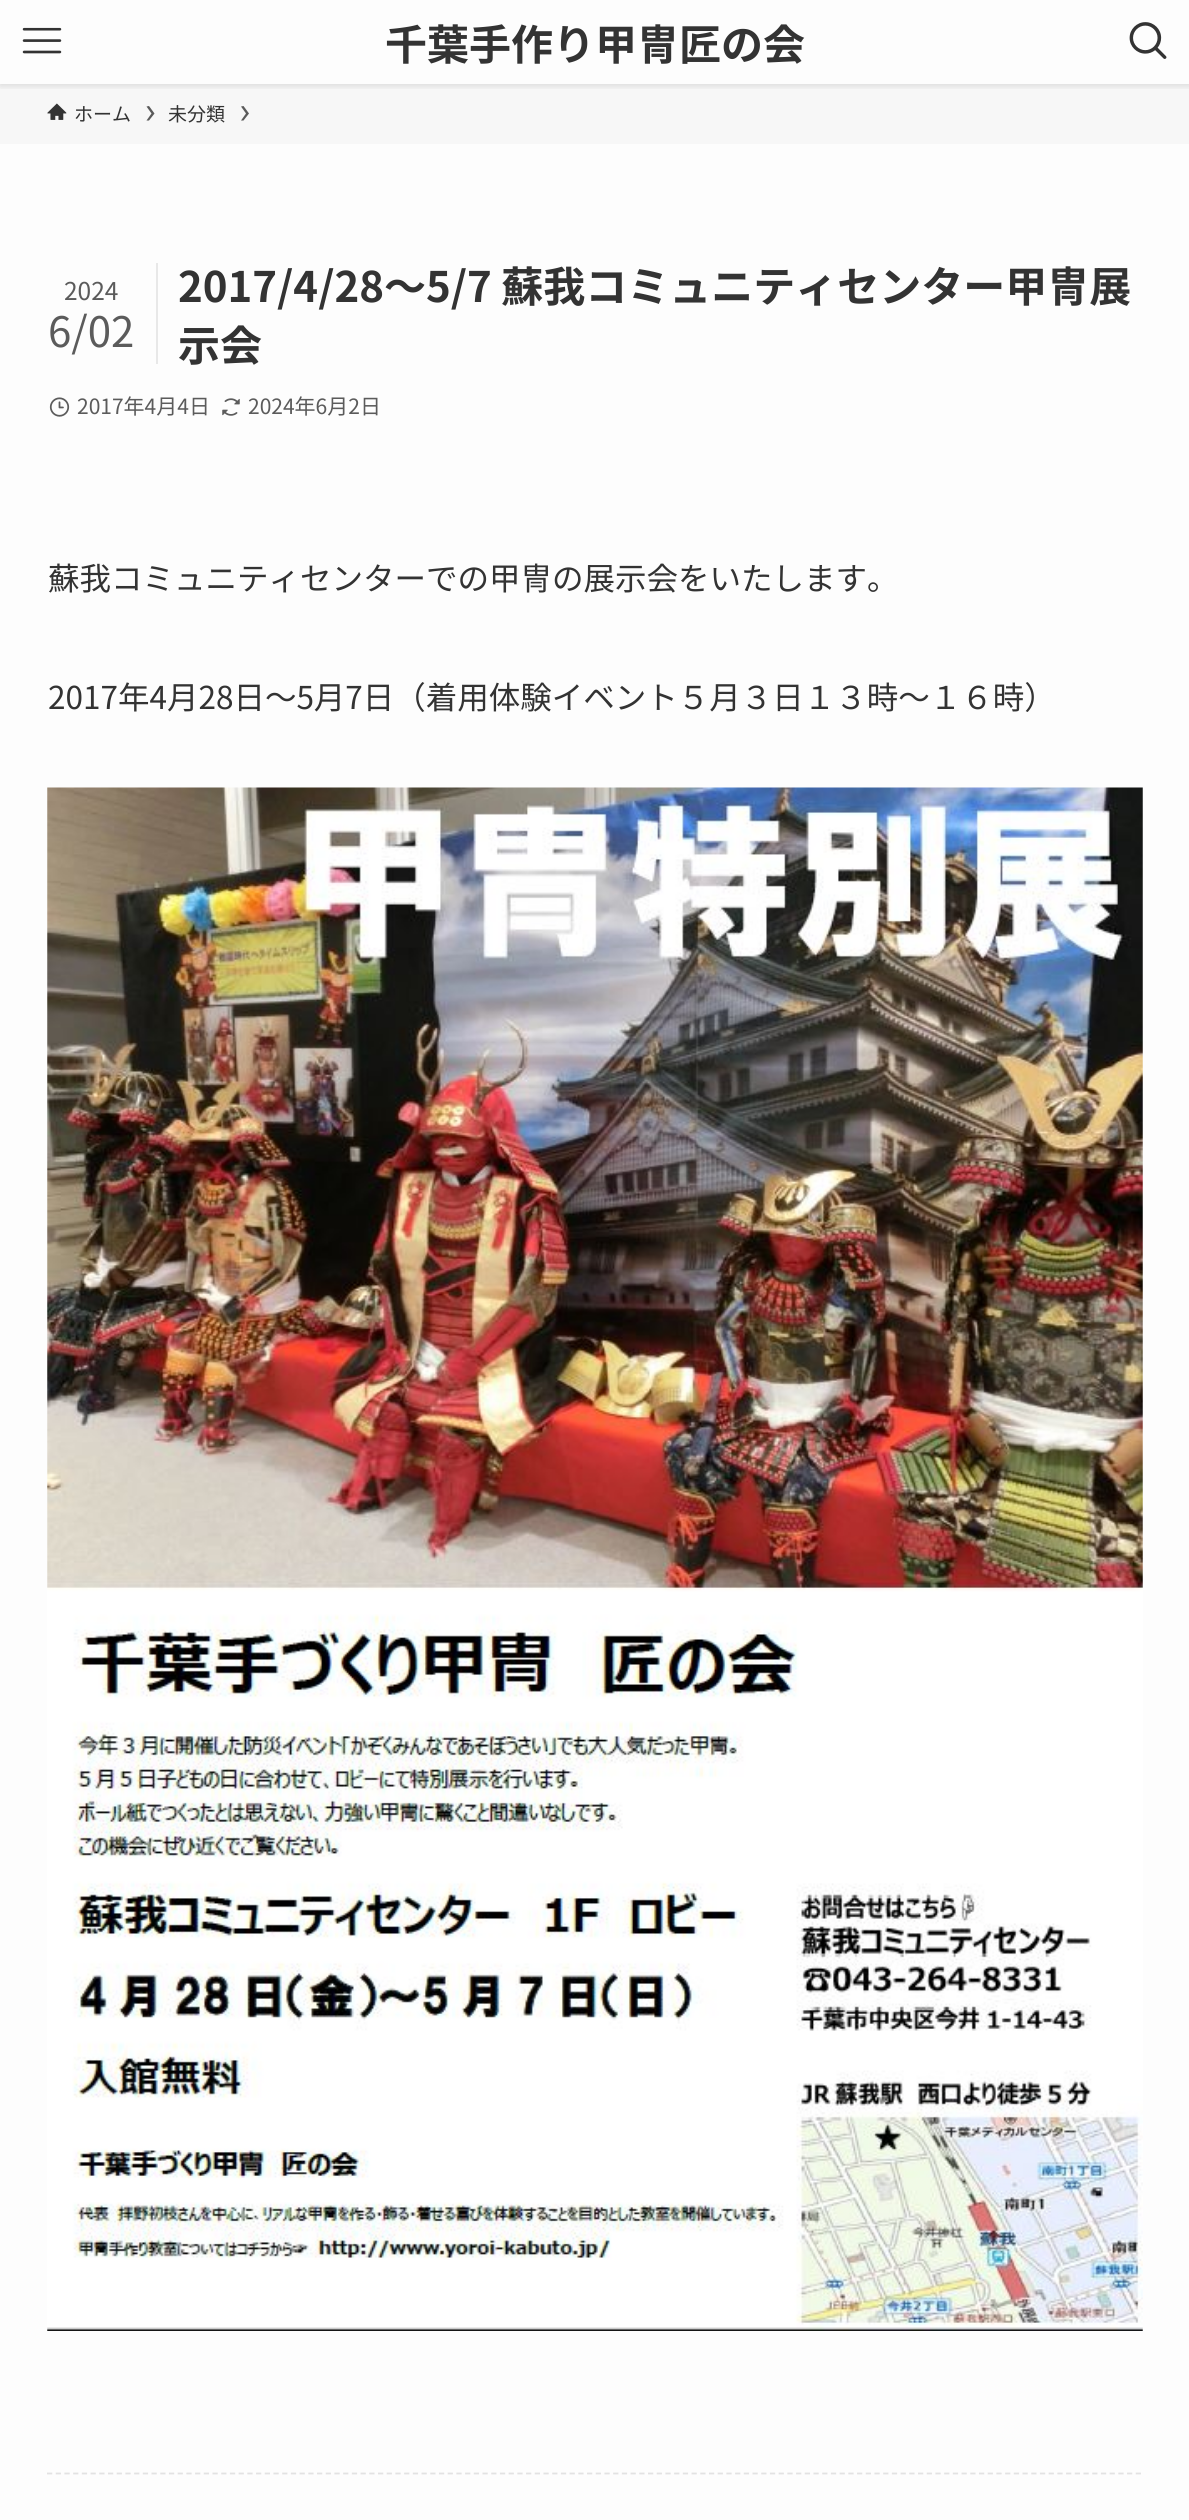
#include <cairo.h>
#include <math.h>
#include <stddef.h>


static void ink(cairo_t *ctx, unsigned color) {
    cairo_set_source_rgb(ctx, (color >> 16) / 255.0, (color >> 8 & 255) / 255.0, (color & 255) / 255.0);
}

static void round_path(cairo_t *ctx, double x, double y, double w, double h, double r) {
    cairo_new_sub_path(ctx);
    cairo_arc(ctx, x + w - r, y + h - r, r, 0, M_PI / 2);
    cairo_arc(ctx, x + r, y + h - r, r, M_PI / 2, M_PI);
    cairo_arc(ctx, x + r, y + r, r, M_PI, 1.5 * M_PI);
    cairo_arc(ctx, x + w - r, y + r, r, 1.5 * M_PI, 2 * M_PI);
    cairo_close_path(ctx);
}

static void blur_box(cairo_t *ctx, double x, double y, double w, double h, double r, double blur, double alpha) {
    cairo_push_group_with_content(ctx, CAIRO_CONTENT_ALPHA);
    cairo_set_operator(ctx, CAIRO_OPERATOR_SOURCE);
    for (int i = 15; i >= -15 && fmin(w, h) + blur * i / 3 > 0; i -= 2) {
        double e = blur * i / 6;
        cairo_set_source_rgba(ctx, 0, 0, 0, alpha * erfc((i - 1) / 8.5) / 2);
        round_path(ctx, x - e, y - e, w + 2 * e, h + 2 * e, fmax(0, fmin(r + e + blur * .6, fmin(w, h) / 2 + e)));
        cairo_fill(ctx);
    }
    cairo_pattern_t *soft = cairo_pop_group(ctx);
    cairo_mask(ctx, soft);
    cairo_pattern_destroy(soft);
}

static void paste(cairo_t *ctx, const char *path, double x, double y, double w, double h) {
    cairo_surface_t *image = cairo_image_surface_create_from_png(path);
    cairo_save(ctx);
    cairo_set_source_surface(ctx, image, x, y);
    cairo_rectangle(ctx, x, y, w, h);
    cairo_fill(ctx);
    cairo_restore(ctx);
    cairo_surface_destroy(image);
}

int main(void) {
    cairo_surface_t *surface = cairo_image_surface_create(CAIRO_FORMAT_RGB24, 1189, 2520);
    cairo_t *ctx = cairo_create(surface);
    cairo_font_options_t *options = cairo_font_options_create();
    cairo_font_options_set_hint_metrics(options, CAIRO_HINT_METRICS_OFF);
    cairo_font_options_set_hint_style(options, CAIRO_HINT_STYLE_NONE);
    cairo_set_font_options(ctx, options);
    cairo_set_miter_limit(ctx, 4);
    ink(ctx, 0xFDFDFD);
    cairo_paint(ctx);
    ink(ctx, 0xF7F7F7);
    cairo_rectangle(ctx, 0, 84, 1189, 60);
    cairo_fill(ctx);
    cairo_save(ctx);
    cairo_rectangle(ctx, 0, 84, 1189, 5);
    cairo_clip(ctx);
    ink(ctx, 0x000000);
    blur_box(ctx, 0, 2, 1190, 84, 0, 3.5, 0.12);
    cairo_restore(ctx);
    paste(ctx, "media/1.png", 22, 27, 40, 27);
    cairo_select_font_face(ctx, "Noto Sans JP", CAIRO_FONT_SLANT_NORMAL, CAIRO_FONT_WEIGHT_BOLD);
    cairo_set_font_size(ctx, 42);
    ink(ctx, 0x333333);
    cairo_move_to(ctx, 385, 60);
    cairo_show_text(ctx, "千葉手作り甲冑匠の会");
    paste(ctx, "media/2.png", 1129, 22, 38, 37);
    paste(ctx, "media/3.png", 47, 103, 20, 17);
    cairo_select_font_face(ctx, "Noto Sans JP", CAIRO_FONT_SLANT_NORMAL, CAIRO_FONT_WEIGHT_NORMAL);
    cairo_set_font_size(ctx, 19);
    cairo_move_to(ctx, 74, 121);
    cairo_show_text(ctx, "ホーム");
    ink(ctx, 0x5A5A5A);
    cairo_new_path(ctx);
    cairo_move_to(ctx, 149, 106);
    cairo_line_to(ctx, 146.5, 106.5);
    cairo_line_to(ctx, 151.5, 113.5);
    cairo_line_to(ctx, 146.5, 120.5);
    cairo_line_to(ctx, 149, 120.5);
    cairo_line_to(ctx, 154.5, 113.5);
    cairo_close_path(ctx);
    cairo_fill(ctx);
    ink(ctx, 0x333333);
    cairo_move_to(ctx, 168, 121);
    cairo_show_text(ctx, "未分類");
    ink(ctx, 0x5A5A5A);
    cairo_new_path(ctx);
    cairo_move_to(ctx, 243.5, 106);
    cairo_line_to(ctx, 241, 106.5);
    cairo_line_to(ctx, 246, 113.5);
    cairo_line_to(ctx, 241, 120.5);
    cairo_line_to(ctx, 243.5, 120.5);
    cairo_line_to(ctx, 249, 113.5);
    cairo_close_path(ctx);
    cairo_fill(ctx);
    ink(ctx, 0xE8E8E8);
    cairo_rectangle(ctx, 156, 263, 2, 101);
    cairo_fill(ctx);
    cairo_set_font_size(ctx, 24.5);
    ink(ctx, 0x5B5B5B);
    cairo_move_to(ctx, 64, 300);
    cairo_show_text(ctx, "2024");
    cairo_set_font_size(ctx, 42);
    cairo_move_to(ctx, 48, 347);
    cairo_show_text(ctx, "6/02");
    cairo_select_font_face(ctx, "Noto Sans JP", CAIRO_FONT_SLANT_NORMAL, CAIRO_FONT_WEIGHT_BOLD);
    ink(ctx, 0x333333);
    cairo_move_to(ctx, 178, 302);
    cairo_show_text(ctx, "2017/4/28～5/7 蘇我コミュニティセンター甲冑展");
    cairo_move_to(ctx, 178, 361);
    cairo_show_text(ctx, "示会");
    paste(ctx, "media/4.png", 49, 397, 21, 20);
    cairo_select_font_face(ctx, "Noto Sans JP", CAIRO_FONT_SLANT_NORMAL, CAIRO_FONT_WEIGHT_NORMAL);
    cairo_set_font_size(ctx, 21);
    ink(ctx, 0x5B5B5B);
    cairo_move_to(ctx, 77, 414);
    cairo_show_text(ctx, "2017年4月4日");
    paste(ctx, "media/5.png", 222, 398, 18, 18);
    cairo_move_to(ctx, 248, 414);
    cairo_show_text(ctx, "2024年6月2日");
    cairo_set_font_size(ctx, 31.5);
    ink(ctx, 0x333333);
    cairo_move_to(ctx, 48, 590);
    cairo_show_text(ctx, "蘇我コミュニティセンターでの甲冑の展示会をいたします。");
    cairo_move_to(ctx, 48, 709);
    cairo_show_text(ctx, "2017年4月28日～5月7日（着用体験イベント５月３日１３時～１６時）");
    paste(ctx, "media/6.png", 47, 787, 1096, 1544);
    cairo_new_path(ctx);
    cairo_move_to(ctx, 47, 2473.5);
    cairo_line_to(ctx, 1143, 2473.5);
    ink(ctx, 0xE2E2E2);
    cairo_set_line_width(ctx, 1.8);
    cairo_set_dash(ctx, (double[]){5.25, 3.46}, 2, 0);
    cairo_stroke(ctx);
    cairo_surface_write_to_png(surface, "image.png");
    cairo_font_options_destroy(options);
    cairo_destroy(ctx);
    cairo_surface_destroy(surface);
    return 0;
}
